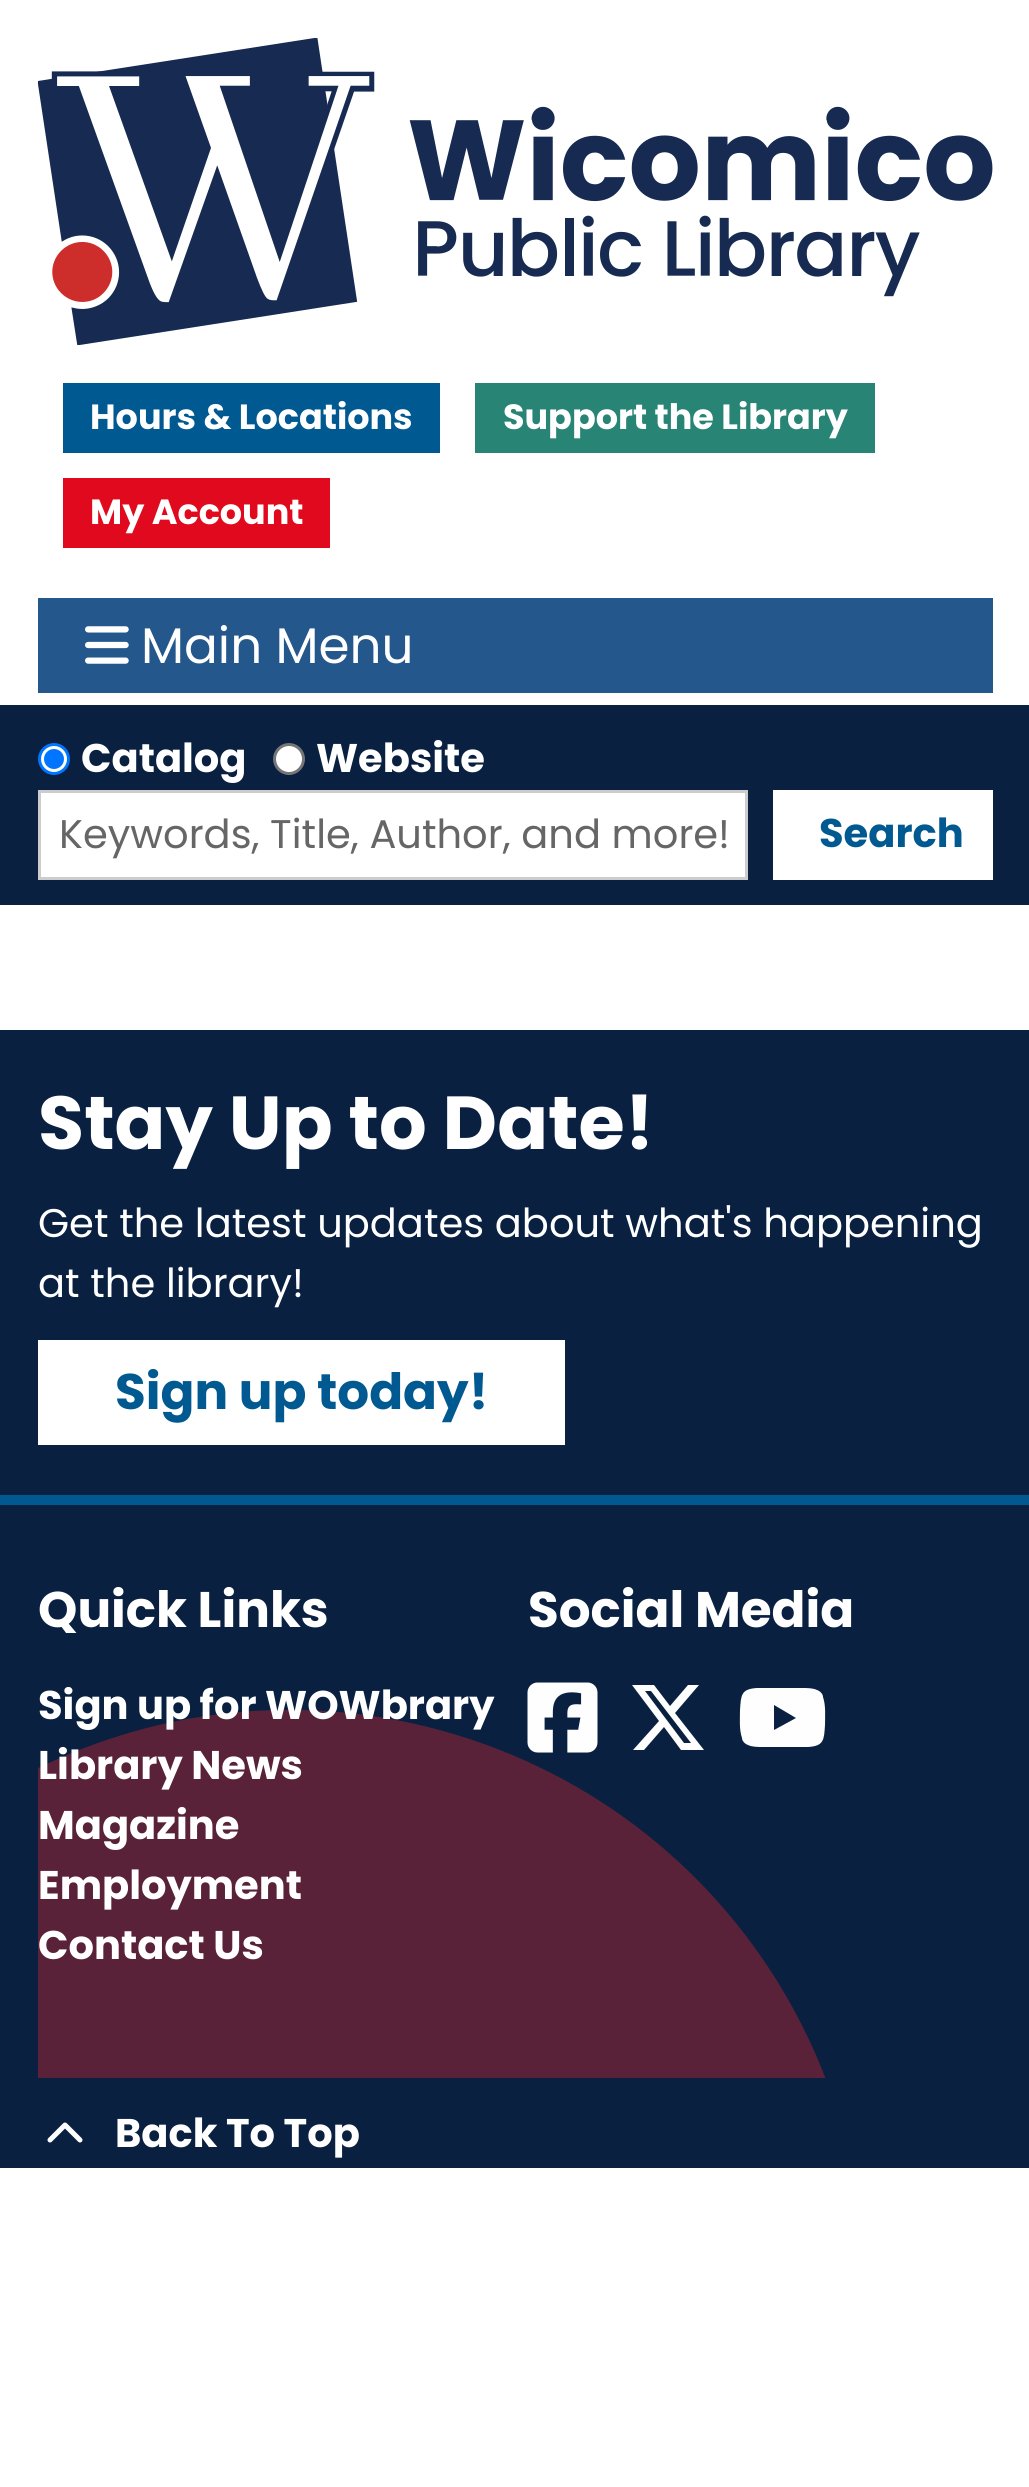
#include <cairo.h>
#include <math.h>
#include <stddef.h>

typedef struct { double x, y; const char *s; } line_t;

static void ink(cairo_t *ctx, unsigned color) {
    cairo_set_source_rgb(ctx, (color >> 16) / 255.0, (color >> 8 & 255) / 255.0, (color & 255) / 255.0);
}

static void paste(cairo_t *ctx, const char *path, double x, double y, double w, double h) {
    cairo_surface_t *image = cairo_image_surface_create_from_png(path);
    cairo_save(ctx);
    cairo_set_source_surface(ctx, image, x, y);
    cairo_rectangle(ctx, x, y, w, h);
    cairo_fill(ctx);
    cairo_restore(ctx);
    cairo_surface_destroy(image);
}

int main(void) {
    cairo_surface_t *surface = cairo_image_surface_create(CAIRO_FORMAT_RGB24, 1029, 2487);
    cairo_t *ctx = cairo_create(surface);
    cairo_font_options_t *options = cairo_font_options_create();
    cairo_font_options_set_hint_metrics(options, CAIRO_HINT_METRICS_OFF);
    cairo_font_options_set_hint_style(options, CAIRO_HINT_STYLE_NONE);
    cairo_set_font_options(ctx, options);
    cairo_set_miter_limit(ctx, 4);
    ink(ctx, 0xFFFFFF);
    cairo_paint(ctx);
    paste(ctx, "media/1.png", 38, 38, 955, 307);
    ink(ctx, 0x005990);
    cairo_rectangle(ctx, 63, 383, 377, 70);
    cairo_fill(ctx);
    cairo_select_font_face(ctx, "Poppins", CAIRO_FONT_SLANT_NORMAL, CAIRO_FONT_WEIGHT_BOLD);
    cairo_set_font_size(ctx, 35);
    ink(ctx, 0xFFFFFF);
    cairo_move_to(ctx, 90, 429);
    cairo_show_text(ctx, "Hours & Locations");
    ink(ctx, 0x288474);
    cairo_rectangle(ctx, 475, 383, 400, 70);
    cairo_fill(ctx);
    ink(ctx, 0xFFFFFF);
    cairo_move_to(ctx, 503, 429);
    cairo_show_text(ctx, "Support the Library");
    ink(ctx, 0xE1091D);
    cairo_rectangle(ctx, 63, 478, 267, 70);
    cairo_fill(ctx);
    ink(ctx, 0xFFFFFF);
    cairo_move_to(ctx, 90, 524);
    cairo_show_text(ctx, "My Account");
    ink(ctx, 0x24578B);
    cairo_rectangle(ctx, 38, 598, 955, 95);
    cairo_fill(ctx);
    paste(ctx, "media/2.png", 85, 626, 44, 38);
    cairo_select_font_face(ctx, "Poppins", CAIRO_FONT_SLANT_NORMAL, CAIRO_FONT_WEIGHT_NORMAL);
    cairo_set_font_size(ctx, 50);
    ink(ctx, 0xFFFFFF);
    cairo_move_to(ctx, 141, 663);
    cairo_show_text(ctx, "Main Menu");
    ink(ctx, 0x092041);
    cairo_rectangle(ctx, 0, 705, 1029, 200);
    cairo_fill(ctx);
    ink(ctx, 0xFFFFFF);
    cairo_arc(ctx, 54, 759, 14.5, 0, 2 * M_PI);
    cairo_fill_preserve(ctx);
    ink(ctx, 0x0075FF);
    cairo_set_line_width(ctx, 3);
    cairo_stroke(ctx);
    cairo_arc(ctx, 54, 759, 10, 0, 2 * M_PI);
    cairo_fill(ctx);
    cairo_select_font_face(ctx, "Poppins", CAIRO_FONT_SLANT_NORMAL, CAIRO_FONT_WEIGHT_BOLD);
    cairo_set_font_size(ctx, 40);
    ink(ctx, 0xFFFFFF);
    cairo_move_to(ctx, 81, 772);
    cairo_show_text(ctx, "Catalog");
    cairo_new_path(ctx);
    cairo_arc(ctx, 289, 759, 14.5, 0, 2 * M_PI);
    cairo_fill_preserve(ctx);
    ink(ctx, 0x767676);
    cairo_stroke(ctx);
    ink(ctx, 0xFFFFFF);
    cairo_move_to(ctx, 316, 772);
    cairo_show_text(ctx, "Website");
    cairo_rectangle(ctx, 39.5, 791.5, 707, 87);
    cairo_fill_preserve(ctx);
    ink(ctx, 0xCCCCCC);
    cairo_stroke(ctx);
    cairo_select_font_face(ctx, "Poppins", CAIRO_FONT_SLANT_NORMAL, CAIRO_FONT_WEIGHT_NORMAL);
    ink(ctx, 0x666666);
    cairo_move_to(ctx, 59, 848);
    cairo_show_text(ctx, "Keywords, Title, Author, and more!");
    ink(ctx, 0xFFFFFF);
    cairo_rectangle(ctx, 773, 790, 220, 90);
    cairo_fill(ctx);
    cairo_select_font_face(ctx, "Poppins", CAIRO_FONT_SLANT_NORMAL, CAIRO_FONT_WEIGHT_BOLD);
    ink(ctx, 0x005990);
    cairo_move_to(ctx, 819, 847);
    cairo_show_text(ctx, "Search");
    ink(ctx, 0x092041);
    cairo_rectangle(ctx, 0, 1030, 1029, 465);
    cairo_fill(ctx);
    ink(ctx, 0x005990);
    cairo_rectangle(ctx, 0, 1495, 1029, 10);
    cairo_fill(ctx);
    cairo_set_font_size(ctx, 75);
    ink(ctx, 0xFFFFFF);
    cairo_move_to(ctx, 38, 1149);
    cairo_show_text(ctx, "Stay Up to Date!");
    cairo_select_font_face(ctx, "Poppins", CAIRO_FONT_SLANT_NORMAL, CAIRO_FONT_WEIGHT_NORMAL);
    cairo_set_font_size(ctx, 40);
    cairo_move_to(ctx, 38, 1237);
    cairo_show_text(ctx, "Get the latest updates about what's happening");
    cairo_move_to(ctx, 38, 1297);
    cairo_show_text(ctx, "at the library!");
    cairo_rectangle(ctx, 38, 1340, 527, 105);
    cairo_fill(ctx);
    cairo_select_font_face(ctx, "Poppins", CAIRO_FONT_SLANT_NORMAL, CAIRO_FONT_WEIGHT_BOLD);
    cairo_set_font_size(ctx, 50);
    ink(ctx, 0x005990);
    cairo_move_to(ctx, 115, 1409);
    cairo_show_text(ctx, "Sign up today!");
    ink(ctx, 0x092041);
    cairo_rectangle(ctx, 0, 1505, 1029, 663);
    cairo_fill(ctx);
    cairo_save(ctx);
    cairo_rectangle(ctx, 38, 1580, 955, 498);
    cairo_clip(ctx);
    ink(ctx, 0x5A2238);
    cairo_new_path(ctx);
    cairo_move_to(ctx, 443, 1731);
    cairo_curve_to(ctx, 749, 1816, 927, 2132, 843, 2437);
    cairo_curve_to(ctx, 758, 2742, 442, 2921, 137, 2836);
    cairo_curve_to(ctx, -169, 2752, -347, 2435, -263, 2130);
    cairo_curve_to(ctx, -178, 1825, 138, 1646, 443, 1731);
    cairo_fill(ctx);
    cairo_restore(ctx);
    ink(ctx, 0xFFFFFF);
    cairo_move_to(ctx, 38, 1627);
    cairo_show_text(ctx, "Quick Links");
    cairo_set_font_size(ctx, 40);
    {
        static const line_t items[] = {
            {38, 1719, "Sign up for WOWbrary"},
            {38, 1779, "Library News"},
            {38, 1839, "Magazine"},
            {38, 1899, "Employment"},
            {38, 1959, "Contact Us"},
        };
        for (size_t i = 0; i < sizeof items / sizeof *items; i++) {
            cairo_move_to(ctx, items[i].x, items[i].y);
            cairo_show_text(ctx, items[i].s);
        }
    }
    cairo_set_font_size(ctx, 50);
    cairo_move_to(ctx, 528, 1627);
    cairo_show_text(ctx, "Social Media");
    paste(ctx, "media/3.png", 527, 1682, 71, 71);
    ink(ctx, 0xFEFEFE);
    cairo_new_path(ctx);
    cairo_move_to(ctx, 688, 1685);
    cairo_line_to(ctx, 699, 1685);
    cairo_line_to(ctx, 675, 1713);
    cairo_line_to(ctx, 704, 1750);
    cairo_line_to(ctx, 681, 1750);
    cairo_line_to(ctx, 664, 1727);
    cairo_line_to(ctx, 644, 1750);
    cairo_line_to(ctx, 633, 1750);
    cairo_line_to(ctx, 659, 1721);
    cairo_line_to(ctx, 632, 1685);
    cairo_line_to(ctx, 654, 1685);
    cairo_line_to(ctx, 670, 1706);
    cairo_close_path(ctx);
    cairo_move_to(ctx, 684, 1743);
    cairo_line_to(ctx, 691, 1743);
    cairo_line_to(ctx, 651, 1691);
    cairo_line_to(ctx, 645, 1691);
    cairo_close_path(ctx);
    cairo_fill(ctx);
    cairo_new_path(ctx);
    cairo_move_to(ctx, 823, 1697);
    cairo_curve_to(ctx, 823, 1694, 820, 1691, 817, 1690);
    cairo_curve_to(ctx, 813, 1688, 807, 1688, 802, 1688);
    cairo_line_to(ctx, 778, 1688);
    cairo_line_to(ctx, 757, 1688);
    cairo_curve_to(ctx, 741, 1689, 741, 1695, 740, 1710);
    cairo_curve_to(ctx, 740, 1719, 739, 1729, 742, 1738);
    cairo_curve_to(ctx, 742, 1741, 745, 1744, 748, 1745);
    cairo_curve_to(ctx, 752, 1747, 758, 1747, 763, 1747);
    cairo_line_to(ctx, 784, 1747);
    cairo_line_to(ctx, 808, 1747);
    cairo_curve_to(ctx, 824, 1746, 824, 1740, 825, 1725);
    cairo_curve_to(ctx, 825, 1716, 826, 1706, 823, 1697);
    cairo_close_path(ctx);
    cairo_move_to(ctx, 774, 1730);
    cairo_line_to(ctx, 774, 1705);
    cairo_line_to(ctx, 796, 1718);
    cairo_close_path(ctx);
    cairo_fill(ctx);
    paste(ctx, "media/4.png", 47, 2122, 36, 21);
    cairo_set_font_size(ctx, 40);
    ink(ctx, 0xFFFFFF);
    cairo_move_to(ctx, 115, 2147);
    cairo_show_text(ctx, "Back To Top");
    cairo_surface_write_to_png(surface, "image.png");
    cairo_font_options_destroy(options);
    cairo_destroy(ctx);
    cairo_surface_destroy(surface);
    return 0;
}
